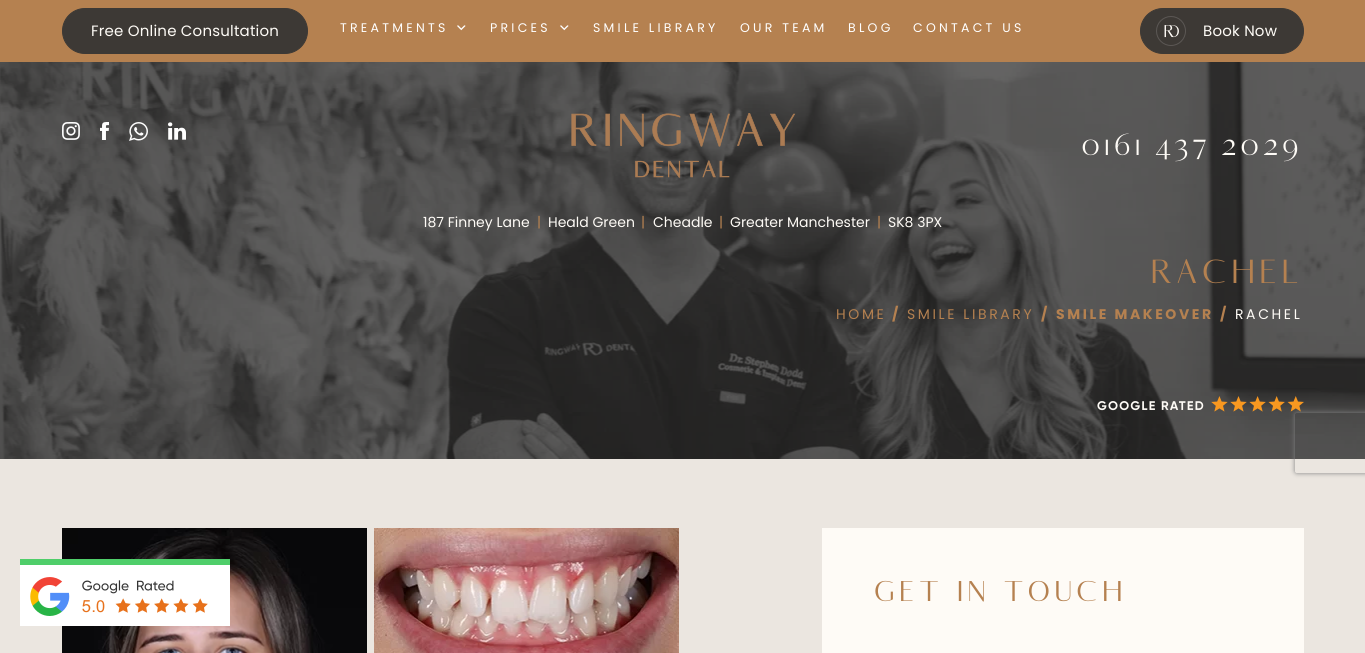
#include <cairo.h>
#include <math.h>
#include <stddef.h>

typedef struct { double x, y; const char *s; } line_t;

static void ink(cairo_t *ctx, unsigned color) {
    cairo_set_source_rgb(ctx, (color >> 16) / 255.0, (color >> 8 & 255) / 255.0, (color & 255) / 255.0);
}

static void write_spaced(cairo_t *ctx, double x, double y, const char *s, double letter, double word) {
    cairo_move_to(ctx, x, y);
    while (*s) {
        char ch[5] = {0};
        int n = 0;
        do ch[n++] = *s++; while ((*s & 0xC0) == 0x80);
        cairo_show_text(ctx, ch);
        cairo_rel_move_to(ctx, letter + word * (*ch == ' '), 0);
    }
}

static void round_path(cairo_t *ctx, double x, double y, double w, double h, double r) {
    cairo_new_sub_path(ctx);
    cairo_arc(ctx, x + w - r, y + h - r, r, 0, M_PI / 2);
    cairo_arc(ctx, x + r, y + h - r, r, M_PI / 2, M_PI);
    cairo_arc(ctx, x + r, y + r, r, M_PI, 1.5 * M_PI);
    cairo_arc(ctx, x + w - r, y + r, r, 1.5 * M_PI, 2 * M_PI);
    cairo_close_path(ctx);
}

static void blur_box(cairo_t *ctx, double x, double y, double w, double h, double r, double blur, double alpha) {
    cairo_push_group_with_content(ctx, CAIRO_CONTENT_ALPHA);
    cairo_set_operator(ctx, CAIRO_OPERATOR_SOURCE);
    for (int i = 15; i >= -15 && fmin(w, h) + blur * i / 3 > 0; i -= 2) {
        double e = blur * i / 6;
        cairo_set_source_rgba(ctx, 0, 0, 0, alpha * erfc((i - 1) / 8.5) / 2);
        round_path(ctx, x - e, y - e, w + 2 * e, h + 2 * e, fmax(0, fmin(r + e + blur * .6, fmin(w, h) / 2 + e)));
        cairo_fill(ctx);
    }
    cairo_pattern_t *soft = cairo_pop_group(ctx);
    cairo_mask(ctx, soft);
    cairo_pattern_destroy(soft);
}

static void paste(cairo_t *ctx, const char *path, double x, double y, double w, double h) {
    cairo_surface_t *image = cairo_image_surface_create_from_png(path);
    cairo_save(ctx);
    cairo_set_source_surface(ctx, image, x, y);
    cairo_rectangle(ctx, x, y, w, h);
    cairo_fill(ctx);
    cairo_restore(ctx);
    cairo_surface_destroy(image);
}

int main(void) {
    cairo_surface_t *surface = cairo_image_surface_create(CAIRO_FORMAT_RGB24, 1365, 653);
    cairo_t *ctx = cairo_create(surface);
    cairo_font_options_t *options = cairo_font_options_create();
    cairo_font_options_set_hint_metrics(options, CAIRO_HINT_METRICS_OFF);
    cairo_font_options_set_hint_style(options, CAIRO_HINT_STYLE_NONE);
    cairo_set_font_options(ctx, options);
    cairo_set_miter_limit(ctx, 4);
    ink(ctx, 0xFFFFFF);
    cairo_paint(ctx);
    ink(ctx, 0xB58150);
    cairo_rectangle(ctx, 0, 0, 1365, 62);
    cairo_fill(ctx);
    ink(ctx, 0x3D3935);
    round_path(ctx, 62.5, 8.5, 245, 45, 22.5);
    cairo_fill_preserve(ctx);
    cairo_set_line_width(ctx, 1);
    cairo_stroke(ctx);
    cairo_select_font_face(ctx, "Poppins", CAIRO_FONT_SLANT_NORMAL, CAIRO_FONT_WEIGHT_NORMAL);
    cairo_set_font_size(ctx, 15);
    ink(ctx, 0xFEFBF6);
    write_spaced(ctx, 91, 36, "Free Online Consultation", 0.2, 0);
    cairo_set_font_size(ctx, 12.5);
    ink(ctx, 0xFFFFFF);
    write_spaced(ctx, 340, 32, "TREATMENTS", 3.25, 0);
    paste(ctx, "media/1.png", 457, 25, 9, 6);
    write_spaced(ctx, 490, 32, "PRICES", 3.25, 0);
    paste(ctx, "media/1.png", 560, 25, 9, 6);
    {
        static const line_t items[] = {
            {593, 32, "SMILE LIBRARY"},
            {740, 32, "OUR TEAM"},
            {848, 32, "BLOG"},
            {913, 32, "CONTACT US"},
        };
        for (size_t i = 0; i < sizeof items / sizeof *items; i++) {
            write_spaced(ctx, items[i].x, items[i].y, items[i].s, 3.25, 0);
        }
    }
    ink(ctx, 0x3D3935);
    round_path(ctx, 1140.5, 8.5, 163, 45, 22.5);
    cairo_fill_preserve(ctx);
    cairo_stroke(ctx);
    paste(ctx, "media/2.png", 1156, 16, 30, 30);
    cairo_set_font_size(ctx, 15);
    ink(ctx, 0xFEFBF6);
    write_spaced(ctx, 1203, 36, "Book Now", 0.2, 0);
    paste(ctx, "media/3.png", 0, 62, 1365, 397);
    paste(ctx, "media/4.png", 62, 122, 18, 18);
    paste(ctx, "media/5.png", 100, 122, 9, 18);
    paste(ctx, "media/6.png", 129, 122, 19, 19);
    paste(ctx, "media/7.png", 168, 122, 18, 18);
    paste(ctx, "media/8.png", 571, 113, 225, 65);
    cairo_select_font_face(ctx, "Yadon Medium", CAIRO_FONT_SLANT_NORMAL, CAIRO_FONT_WEIGHT_NORMAL);
    cairo_set_font_size(ctx, 30);
    write_spaced(ctx, 1081, 155, "0161 437 2029", 3.75, 0);
    cairo_select_font_face(ctx, "Poppins", CAIRO_FONT_SLANT_NORMAL, CAIRO_FONT_WEIGHT_NORMAL);
    cairo_set_font_size(ctx, 14);
    cairo_move_to(ctx, 423, 227);
    cairo_show_text(ctx, "187 Finney Lane");
    ink(ctx, 0xB58150);
    cairo_move_to(ctx, 537, 227);
    cairo_show_text(ctx, "|");
    ink(ctx, 0xFEFBF6);
    cairo_move_to(ctx, 548, 227);
    cairo_show_text(ctx, "Heald Green");
    ink(ctx, 0xB58150);
    cairo_move_to(ctx, 641, 227);
    cairo_show_text(ctx, "|");
    ink(ctx, 0xFEFBF6);
    cairo_move_to(ctx, 653, 227);
    cairo_show_text(ctx, "Cheadle");
    ink(ctx, 0xB58150);
    cairo_move_to(ctx, 719, 227);
    cairo_show_text(ctx, "|");
    ink(ctx, 0xFEFBF6);
    cairo_move_to(ctx, 730, 227);
    cairo_show_text(ctx, "Greater Manchester");
    ink(ctx, 0xB58150);
    cairo_move_to(ctx, 877, 227);
    cairo_show_text(ctx, "|");
    ink(ctx, 0xFEFBF6);
    cairo_move_to(ctx, 888, 227);
    cairo_show_text(ctx, "SK8 3PX");
    cairo_select_font_face(ctx, "Yadon Medium", CAIRO_FONT_SLANT_NORMAL, CAIRO_FONT_WEIGHT_NORMAL);
    cairo_set_font_size(ctx, 35);
    ink(ctx, 0xB58150);
    write_spaced(ctx, 1151, 283, "RACHEL", 6, 0);
    cairo_select_font_face(ctx, "Poppins", CAIRO_FONT_SLANT_NORMAL, CAIRO_FONT_WEIGHT_NORMAL);
    cairo_set_font_size(ctx, 14);
    write_spaced(ctx, 836, 319, "HOME", 2.6, 0);
    cairo_select_font_face(ctx, "Poppins", CAIRO_FONT_SLANT_NORMAL, CAIRO_FONT_WEIGHT_BOLD);
    write_spaced(ctx, 892, 319, "/", 2.6, 0);
    cairo_select_font_face(ctx, "Poppins", CAIRO_FONT_SLANT_NORMAL, CAIRO_FONT_WEIGHT_NORMAL);
    write_spaced(ctx, 907, 319, "SMILE LIBRARY", 2.6, 0);
    cairo_select_font_face(ctx, "Poppins", CAIRO_FONT_SLANT_NORMAL, CAIRO_FONT_WEIGHT_BOLD);
    {
        static const line_t items[] = {
            {1041, 319, "/"},
            {1056, 319, "SMILE MAKEOVER"},
            {1220, 319, "/"},
        };
        for (size_t i = 0; i < sizeof items / sizeof *items; i++) {
            write_spaced(ctx, items[i].x, items[i].y, items[i].s, 2.6, 0);
        }
    }
    cairo_select_font_face(ctx, "Poppins", CAIRO_FONT_SLANT_NORMAL, CAIRO_FONT_WEIGHT_NORMAL);
    ink(ctx, 0xFEFBF6);
    write_spaced(ctx, 1235, 319, "RACHEL", 2.6, 0);
    ink(ctx, 0xEBE6E0);
    cairo_rectangle(ctx, 0, 459, 1365, 194);
    cairo_fill(ctx);
    cairo_save(ctx);
    cairo_set_fill_rule(ctx, CAIRO_FILL_RULE_EVEN_ODD);
    cairo_new_path(ctx);
    cairo_move_to(ctx, 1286, 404);
    cairo_line_to(ctx, 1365, 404);
    cairo_line_to(ctx, 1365, 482);
    cairo_line_to(ctx, 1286, 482);
    cairo_close_path(ctx);
    cairo_move_to(ctx, 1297, 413);
    cairo_line_to(ctx, 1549, 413);
    cairo_curve_to(ctx, 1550, 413, 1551, 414, 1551, 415);
    cairo_line_to(ctx, 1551, 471);
    cairo_curve_to(ctx, 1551, 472, 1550, 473, 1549, 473);
    cairo_line_to(ctx, 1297, 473);
    cairo_curve_to(ctx, 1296, 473, 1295, 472, 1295, 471);
    cairo_line_to(ctx, 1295, 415);
    cairo_curve_to(ctx, 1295, 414, 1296, 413, 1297, 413);
    cairo_close_path(ctx);
    cairo_clip(ctx);
    ink(ctx, 0x808080);
    blur_box(ctx, 1295, 413, 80, 60, 2, 2.5, 1);
    cairo_restore(ctx);
    paste(ctx, "media/9.png", 1097, 396, 207, 16);
    paste(ctx, "media/11.png", 62, 528, 305, 125);
    paste(ctx, "media/10.png", 20, 559, 210, 67);
    paste(ctx, "media/12.png", 374, 528, 305, 125);
    ink(ctx, 0xFEFBF6);
    cairo_rectangle(ctx, 822, 528, 482, 125);
    cairo_fill(ctx);
    cairo_select_font_face(ctx, "Yadon Medium", CAIRO_FONT_SLANT_NORMAL, CAIRO_FONT_WEIGHT_NORMAL);
    cairo_set_font_size(ctx, 30);
    ink(ctx, 0xB58150);
    write_spaced(ctx, 875, 601, "GET IN TOUCH", 5.75, 0);
    cairo_surface_write_to_png(surface, "image.png");
    cairo_font_options_destroy(options);
    cairo_destroy(ctx);
    cairo_surface_destroy(surface);
    return 0;
}
